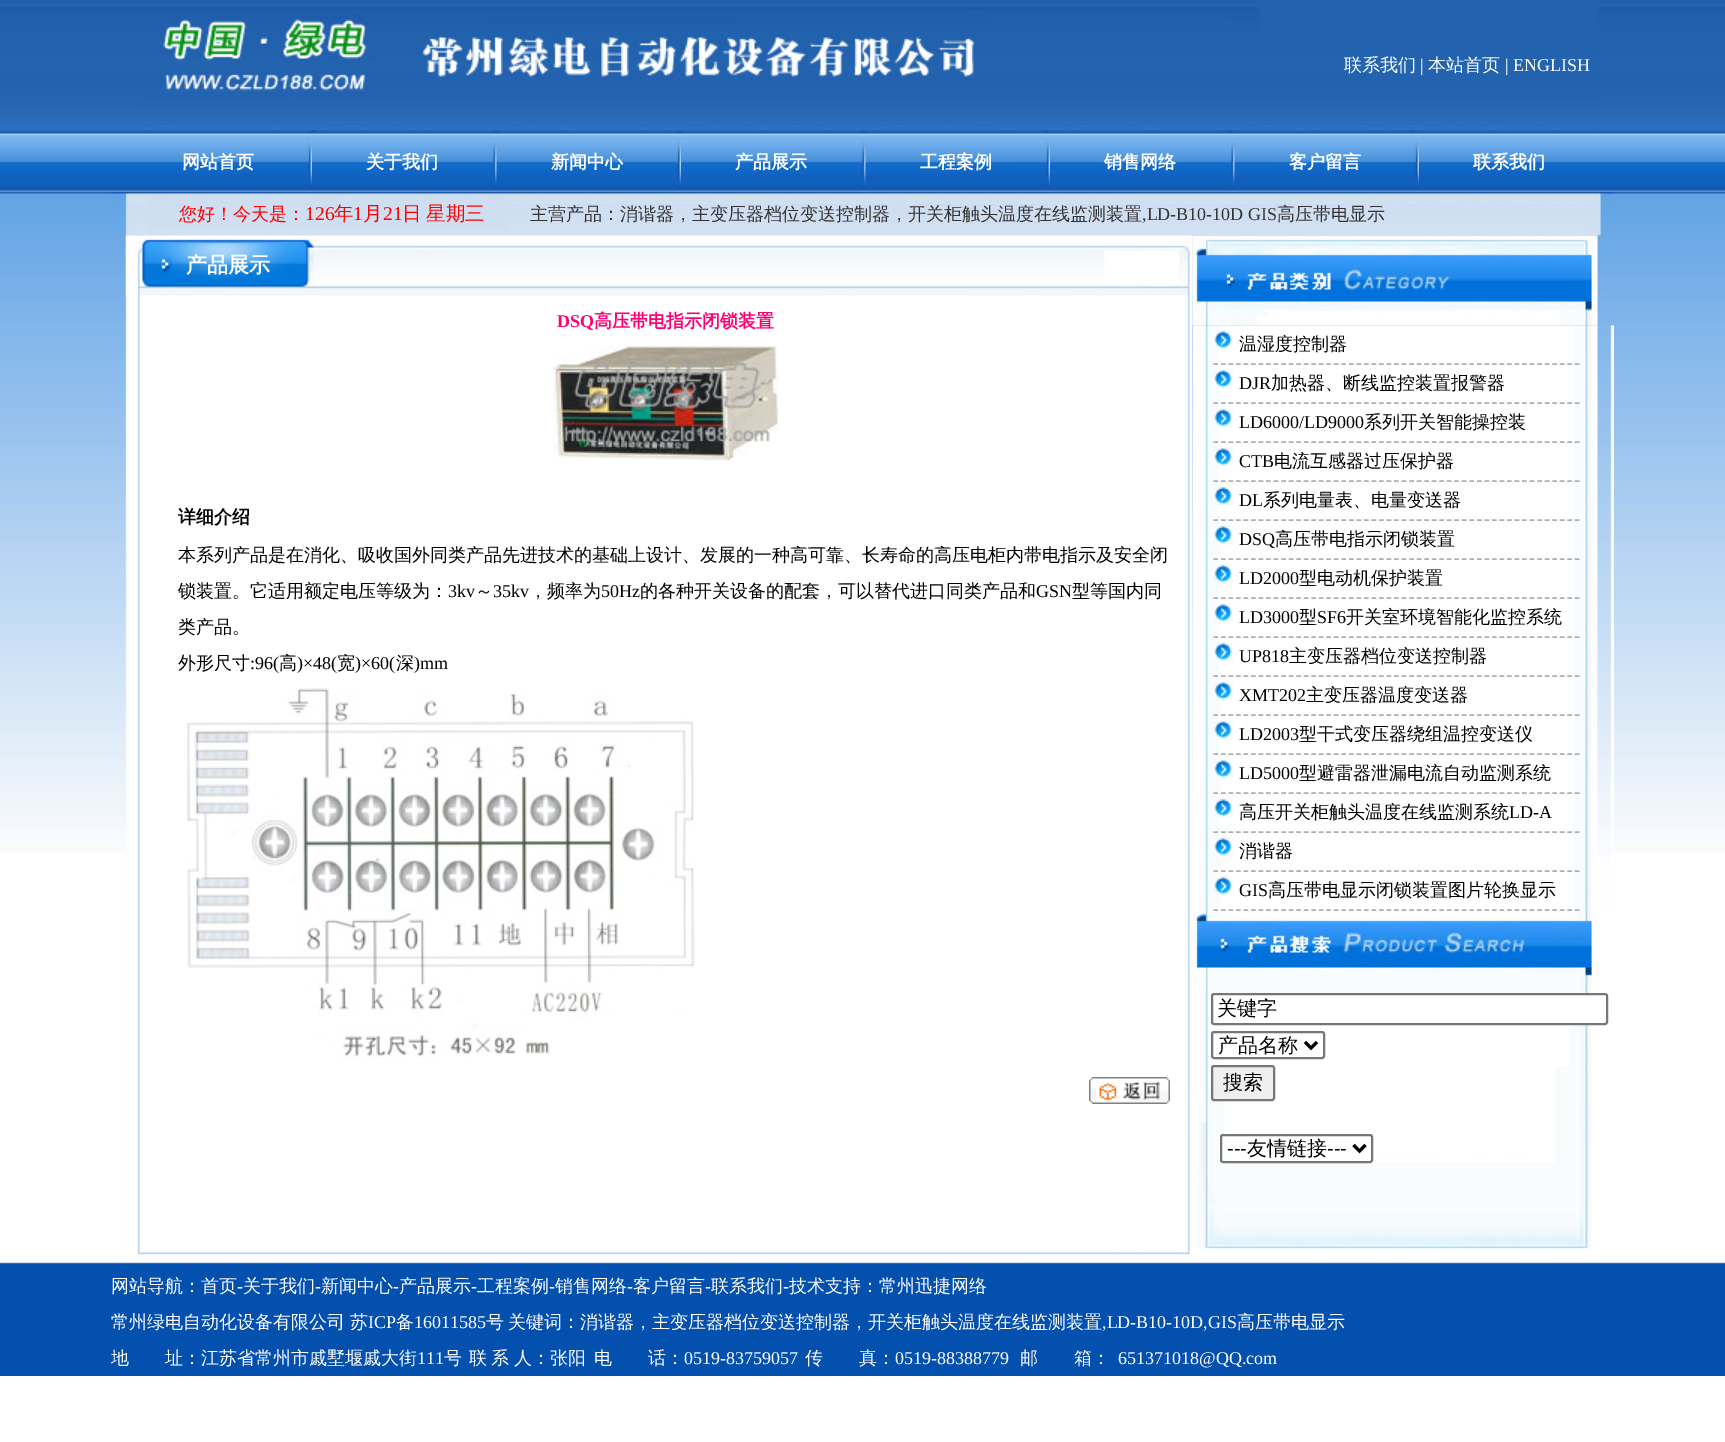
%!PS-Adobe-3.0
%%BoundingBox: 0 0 1725 1442
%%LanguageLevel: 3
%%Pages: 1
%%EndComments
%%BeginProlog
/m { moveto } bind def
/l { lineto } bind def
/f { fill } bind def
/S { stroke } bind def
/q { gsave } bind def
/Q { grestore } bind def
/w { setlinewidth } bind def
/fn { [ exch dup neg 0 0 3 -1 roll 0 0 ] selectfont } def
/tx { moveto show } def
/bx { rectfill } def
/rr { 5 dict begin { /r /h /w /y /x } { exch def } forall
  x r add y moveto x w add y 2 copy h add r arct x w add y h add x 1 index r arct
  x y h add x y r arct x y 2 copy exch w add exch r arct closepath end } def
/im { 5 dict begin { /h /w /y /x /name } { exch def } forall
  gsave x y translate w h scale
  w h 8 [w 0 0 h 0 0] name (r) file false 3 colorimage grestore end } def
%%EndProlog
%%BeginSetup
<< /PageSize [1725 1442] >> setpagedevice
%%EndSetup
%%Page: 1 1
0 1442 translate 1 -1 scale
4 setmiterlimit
1 setgray
0 0 1725 1442 bx
(image0.raw) 0 0 1725 852 im
(image1.raw) 143 7 1456 125 im
/WenQuanYiZenHei-Medium 18 fn
(联系我们) 1344 71 tx
/LiberationSerif-Regular 18 fn
(|) 1420 71 tx
/WenQuanYiZenHei-Medium 18 fn
(本站首页) 1428 71 tx
/LiberationSerif-Regular 18 fn
(| ENGLISH) 1505 71 tx
/WenQuanYiZenHei-Bold 18 fn
(网站首页) 182 168 tx
(image2.raw) 307 132 5 60 im
(关于我们) 366 168 tx
(image3.raw) 492 132 5 60 im
(新闻中心) 551 168 tx
(image4.raw) 676 132 5 60 im
(产品展示) 735 168 tx
(image5.raw) 861 132 5 60 im
(工程案例) 920 168 tx
(image6.raw) 1045 132 5 60 im
(销售网络) 1104 168 tx
(image7.raw) 1230 132 5 60 im
(客户留言) 1289 168 tx
(image8.raw) 1414 132 5 60 im
(联系我们) 1473 168 tx
(image9.raw) 111 192 1503 44 im
/WenQuanYiZenHei-Medium 18 fn
1 0 0 setrgbcolor
(您好！今天是：) 179 220 tx
/LiberationSerif-Regular 19.5 fn
(126) 305 220 tx
/WenQuanYiZenHei-Medium 19.5 fn
(年) 334 220 tx
/LiberationSerif-Regular 19.5 fn
(1) 353 220 tx
/WenQuanYiZenHei-Medium 19.5 fn
(月) 363 220 tx
/LiberationSerif-Regular 19.5 fn
(21) 383 220 tx
/WenQuanYiZenHei-Medium 19.5 fn
(日) 402 220 tx
(星期三) 426 220 tx
/WenQuanYiZenHei-Medium 18 fn
0.2 setgray
(主营产品：消谐器，主变压器档位变送控制器，开关柜触头温度在线监测装置) 530 220 tx
/LiberationSerif-Regular 18 fn
(,LD-B10-10D GIS) 1142 220 tx
/WenQuanYiZenHei-Medium 18 fn
(高压带电显示) 1277 220 tx
(image10.raw) 125 235 1068 1016 im
(image11.raw) 125 235 1068 61 im
/WenQuanYiZenHei-Bold 21 fn
1 setgray
(产品展示) 186 272 tx
/LiberationSerif-Bold 18 fn
1 0 0.447 setrgbcolor
(DSQ) 557 327 tx
/WenQuanYiZenHei-Bold 18 fn
(高压带电指示闭锁装置) 594 327 tx
(image12.raw) 553 346 226 115 im
0 setgray
(详细介绍) 178 523 tx
/WenQuanYiZenHei-Medium 18 fn
(本系列产品是在消化、吸收国外同类产品先进技术的基础上设计、发展的一种高可靠、长寿命的高压电柜内带电指示及安全闭) 178 561 tx
(锁装置。它适用额定电压等级为：) 178 597 tx
/LiberationSerif-Regular 18 fn
(3kv) 448 597 tx
/WenQuanYiZenHei-Medium 18 fn
(～) 475 597 tx
/LiberationSerif-Regular 18 fn
(35kv) 493 597 tx
/WenQuanYiZenHei-Medium 18 fn
(，频率为) 529 597 tx
/LiberationSerif-Regular 18 fn
(50Hz) 601 597 tx
/WenQuanYiZenHei-Medium 18 fn
(的各种开关设备的配套，可以替代进口同类产品和) 640 597 tx
/LiberationSerif-Regular 18 fn
(GSN) 1036 597 tx
/WenQuanYiZenHei-Medium 18 fn
(型等国内同) 1072 597 tx
(类产品。) 178 633 tx
(外形尺寸) 178 669 tx
/LiberationSerif-Regular 18 fn
(:96\() 250 669 tx
/WenQuanYiZenHei-Medium 18 fn
(高) 279 669 tx
/LiberationSerif-Regular 18 fn
(\)×48\() 297 669 tx
/WenQuanYiZenHei-Medium 18 fn
(宽) 337 669 tx
/LiberationSerif-Regular 18 fn
(\)×60\() 355 669 tx
/WenQuanYiZenHei-Medium 18 fn
(深) 396 669 tx
/LiberationSerif-Regular 18 fn
(\)mm) 414 669 tx
(image13.raw) 187 688 508 371 im
(image14.raw) 1089 1077 81 27 im
(image16.raw) 1193 325 421 587 im
(image15.raw) 1192 235 419 91 im
0.682 setgray
1.5 w
[4.5 3.03] 0 setdash
1213.5 364 m 1579.5 364 l S
(image17.raw) 1213 330 20 20 im
/WenQuanYiZenHei-Medium 18 fn
0 setgray
(温湿度控制器) 1239 350 tx
0.682 setgray
1213.5 403 m 1579.5 403 l S
(image18.raw) 1213 369 20 20 im
/LiberationSerif-Regular 18 fn
0 setgray
(DJR) 1239 389 tx
/WenQuanYiZenHei-Medium 18 fn
(加热器、断线监控装置报警器) 1271 389 tx
0.682 setgray
1213.5 442 m 1579.5 442 l S
(image19.raw) 1213 408 20 20 im
/LiberationSerif-Regular 18 fn
0 setgray
(LD6000/LD9000) 1239 428 tx
/WenQuanYiZenHei-Medium 18 fn
(系列开关智能操控装) 1364 428 tx
0.682 setgray
1213.5 481 m 1579.5 481 l S
(image20.raw) 1213 447 20 20 im
/LiberationSerif-Regular 18 fn
0 setgray
(CTB) 1239 467 tx
/WenQuanYiZenHei-Medium 18 fn
(电流互感器过压保护器) 1274 467 tx
0.682 setgray
1213.5 520 m 1579.5 520 l S
(image20.raw) 1213 486 20 20 im
/LiberationSerif-Regular 18 fn
0 setgray
(DL) 1239 506 tx
/WenQuanYiZenHei-Medium 18 fn
(系列电量表、电量变送器) 1263 506 tx
0.682 setgray
1213.5 559 m 1579.5 559 l S
(image21.raw) 1213 525 20 20 im
/LiberationSerif-Regular 18 fn
0 setgray
(DSQ) 1239 545 tx
/WenQuanYiZenHei-Medium 18 fn
(高压带电指示闭锁装置) 1275 545 tx
0.682 setgray
1213.5 598 m 1579.5 598 l S
(image20.raw) 1213 564 20 20 im
/LiberationSerif-Regular 18 fn
0 setgray
(LD2000) 1239 584 tx
/WenQuanYiZenHei-Medium 18 fn
(型电动机保护装置) 1299 584 tx
0.682 setgray
1213.5 637 m 1579.5 637 l S
(image22.raw) 1213 603 20 20 im
/LiberationSerif-Regular 18 fn
0 setgray
(LD3000) 1239 623 tx
/WenQuanYiZenHei-Medium 18 fn
(型) 1299 623 tx
/LiberationSerif-Regular 18 fn
(SF6) 1317 623 tx
/WenQuanYiZenHei-Medium 18 fn
(开关室环境智能化监控系统) 1346 623 tx
0.682 setgray
1213.5 676 m 1579.5 676 l S
(image23.raw) 1213 642 20 20 im
/LiberationSerif-Regular 18 fn
0 setgray
(UP818) 1239 662 tx
/WenQuanYiZenHei-Medium 18 fn
(主变压器档位变送控制器) 1289 662 tx
0.682 setgray
1213.5 715 m 1579.5 715 l S
(image20.raw) 1213 681 20 20 im
/LiberationSerif-Regular 18 fn
0 setgray
(XMT202) 1239 701 tx
/WenQuanYiZenHei-Medium 18 fn
(主变压器温度变送器) 1306 701 tx
0.682 setgray
1213.5 754 m 1579.5 754 l S
(image20.raw) 1213 720 20 20 im
/LiberationSerif-Regular 18 fn
0 setgray
(LD2003) 1239 740 tx
/WenQuanYiZenHei-Medium 18 fn
(型干式变压器绕组温控变送仪) 1299 740 tx
0.682 setgray
1213.5 793 m 1579.5 793 l S
(image24.raw) 1213 759 20 20 im
/LiberationSerif-Regular 18 fn
0 setgray
(LD5000) 1239 779 tx
/WenQuanYiZenHei-Medium 18 fn
(型避雷器泄漏电流自动监测系统) 1299 779 tx
0.682 setgray
1213.5 832 m 1579.5 832 l S
(image25.raw) 1213 798 20 20 im
0 setgray
(高压开关柜触头温度在线监测系统) 1239 818 tx
/LiberationSerif-Regular 18 fn
(LD-A) 1509 818 tx
0.682 setgray
1213.5 871 m 1579.5 871 l S
(image20.raw) 1213 837 20 20 im
/WenQuanYiZenHei-Medium 18 fn
0 setgray
(消谐器) 1239 857 tx
0.682 setgray
1213.5 910 m 1579.5 910 l S
(image26.raw) 1213 876 20 20 im
/LiberationSerif-Regular 18 fn
0 setgray
(GIS) 1239 896 tx
/WenQuanYiZenHei-Medium 18 fn
(高压带电显示闭锁装置图片轮换显示) 1268 896 tx
(image27.raw) 1193 912 406 75 im
(image28.raw) 1196 987 397 262 im
1 setgray
1212 994 395 30 2 rr q f Q
0.463 setgray
2 w
[] 0 setdash
S
/WenQuanYiZenHei-Medium 20 fn
0 setgray
(关键字) 1217 1015 tx
1 setgray
1212 1032 112 26 2 rr q f Q
0.463 setgray
S
0 setgray
3 w
1305 1042 m 1311 1048 l 1317 1042 l S
(产品名称) 1218 1052 tx
0.937 setgray
1212 1066 62 34 2 rr q f Q
0.463 setgray
2 w
S
0 setgray
(搜索) 1223 1089 tx
1 setgray
1221 1135 151 27 2 rr q f Q
0.463 setgray
S
0 setgray
3 w
1353.5 1145 m 1359.5 1151 l 1365.5 1145 l S
/LiberationSans-Regular 20 fn
(---) 1227 1155 tx
/WenQuanYiZenHei-Medium 20 fn
(友情链接) 1247 1155 tx
/LiberationSans-Regular 20 fn
(---) 1327 1155 tx
(image29.raw) 137 1251 1054 4 im
0.016 0.314 0.682 setrgbcolor
0 1264 1725 112 bx
(image30.raw) 0 1256 1725 8 im
/WenQuanYiZenHei-Medium 18 fn
1 setgray
(网站导航：首页) 111 1292 tx
/LiberationSerif-Regular 18 fn
(-) 237 1292 tx
/WenQuanYiZenHei-Medium 18 fn
(关于我们) 243 1292 tx
/LiberationSerif-Regular 18 fn
(-) 315 1292 tx
/WenQuanYiZenHei-Medium 18 fn
(新闻中心) 321 1292 tx
/LiberationSerif-Regular 18 fn
(-) 393 1292 tx
/WenQuanYiZenHei-Medium 18 fn
(产品展示) 399 1292 tx
/LiberationSerif-Regular 18 fn
(-) 471 1292 tx
/WenQuanYiZenHei-Medium 18 fn
(工程案例) 477 1292 tx
/LiberationSerif-Regular 18 fn
(-) 549 1292 tx
/WenQuanYiZenHei-Medium 18 fn
(销售网络) 555 1292 tx
/LiberationSerif-Regular 18 fn
(-) 627 1292 tx
/WenQuanYiZenHei-Medium 18 fn
(客户留言) 633 1292 tx
/LiberationSerif-Regular 18 fn
(-) 705 1292 tx
/WenQuanYiZenHei-Medium 18 fn
(联系我们) 711 1292 tx
/LiberationSerif-Regular 18 fn
(-) 783 1292 tx
/WenQuanYiZenHei-Medium 18 fn
(技术支持：常州迅捷网络) 789 1292 tx
(常州绿电自动化设备有限公司) 111 1328 tx
(苏) 350 1328 tx
/LiberationSerif-Regular 18 fn
(ICP) 368 1328 tx
/WenQuanYiZenHei-Medium 18 fn
(备) 396 1328 tx
/LiberationSerif-Regular 18 fn
(16011585) 414 1328 tx
/WenQuanYiZenHei-Medium 18 fn
(号) 486 1328 tx
(关键词：消谐器，主变压器档位变送控制器，开关柜触头温度在线监测装置) 508 1328 tx
/LiberationSerif-Regular 18 fn
(,LD-B10-10D,GIS) 1102 1328 tx
/WenQuanYiZenHei-Medium 18 fn
(高压带电显示) 1237 1328 tx
(地　　址：江苏省常州市戚墅堰戚大街) 111 1364 tx
/LiberationSerif-Regular 18 fn
(111) 417 1364 tx
/WenQuanYiZenHei-Medium 18 fn
(号) 444 1364 tx
469 1364 m -1 0 32 (联 系 人：张阳) widthshow
(电　　话：) 594 1364 tx
/LiberationSerif-Regular 18 fn
(0519-83759057) 684 1364 tx
/WenQuanYiZenHei-Medium 18 fn
(传　　真：) 805 1364 tx
/LiberationSerif-Regular 18 fn
(0519-88388779) 895 1364 tx
/WenQuanYiZenHei-Medium 18 fn
(邮　　箱：) 1020 1364 tx
/LiberationSerif-Regular 18 fn
(651371018@QQ.com) 1118 1364 tx
showpage
%%EOF
